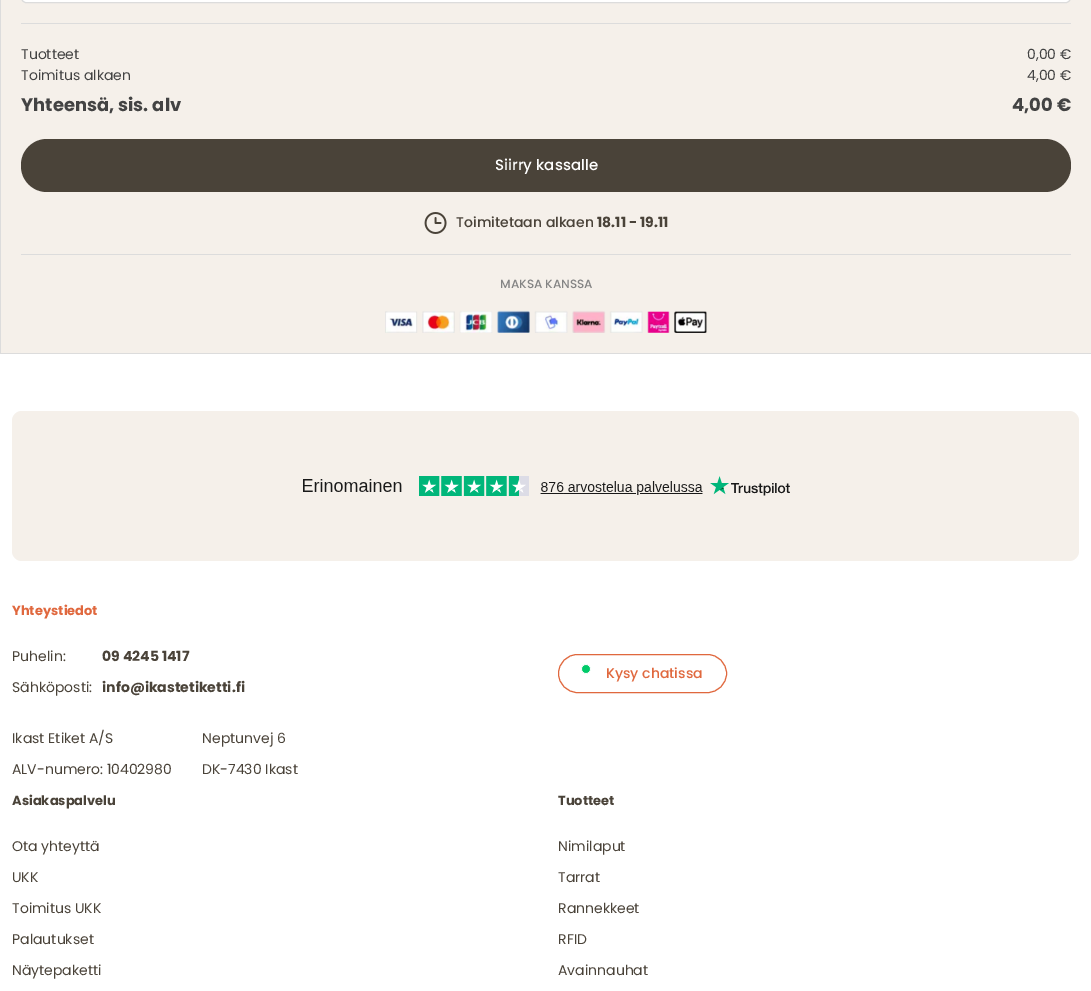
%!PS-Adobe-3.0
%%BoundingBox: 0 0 1091 991
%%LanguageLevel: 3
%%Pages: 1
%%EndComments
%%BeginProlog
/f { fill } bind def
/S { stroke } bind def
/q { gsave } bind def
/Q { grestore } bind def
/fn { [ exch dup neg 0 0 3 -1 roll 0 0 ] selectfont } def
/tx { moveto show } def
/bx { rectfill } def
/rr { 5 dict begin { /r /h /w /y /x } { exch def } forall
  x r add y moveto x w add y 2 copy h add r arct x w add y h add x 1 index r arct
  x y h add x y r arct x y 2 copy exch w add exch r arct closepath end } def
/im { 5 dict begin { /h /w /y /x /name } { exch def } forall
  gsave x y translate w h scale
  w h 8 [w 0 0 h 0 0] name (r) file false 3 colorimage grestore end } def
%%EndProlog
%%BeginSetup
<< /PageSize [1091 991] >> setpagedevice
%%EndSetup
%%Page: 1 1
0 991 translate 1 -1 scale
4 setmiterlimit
1 setgray
0 0 1091 991 bx
0.961 0.941 0.918 setrgbcolor
1 0 1090 353 bx
0.863 setgray
0 0 1 353 bx
1 setgray
21.5 -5.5 1049 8 4.5 rr q f Q
0.863 setgray
S
21 23 1050 1 bx
/Poppins-Regular 14 fn
0.263 setgray
(Tuotteet) 21 59 tx
(0,00 €) 1027 59 tx
(Toimitus alkaen) 21 80 tx
(4,00 €) 1027 80 tx
/Poppins-Bold 18 fn
(Yhteensä, sis. alv) 21 111 tx
(4,00 €) 1012 111 tx
0.29 0.263 0.224 setrgbcolor
21 139 1050 53 26 rr f
/Poppins-Medium 15 fn
1 setgray
(Siirry kassalle) 495 170 tx
(image0.raw) 424 212 23 22 im
/Poppins-Medium 14 fn
0.29 0.263 0.224 setrgbcolor
(Toimitetaan alkaen) 456 227 tx
/Poppins-Bold 14 fn
(18.11 - 19.11) 597 227 tx
0.863 setgray
21 254 1050 1 bx
/Poppins-Medium 12 fn
0.518 setgray
(MAKSA KANSSA) 500 288 tx
(image1.raw) 385 310 322 23 im
0.863 setgray
0 353 1091 1 bx
0.961 0.941 0.918 setrgbcolor
12 411 1067 150 10 rr f
(image2.raw) 303 476 487 20 im
/Poppins-Bold 13 fn
0.878 0.408 0.243 setrgbcolor
(Yhteystiedot) 12 615 tx
/Poppins-Regular 14 fn
0.29 0.263 0.224 setrgbcolor
(Puhelin:) 12 661 tx
(Sähköposti:) 12 692 tx
/Poppins-Bold 14 fn
(09 4245 1417) 102 661 tx
(info@ikastetiketti.fi) 102 692 tx
/Poppins-Regular 14 fn
(Ikast Etiket A/S) 12 743 tx
(ALV-numero: 10402980) 12 774 tx
(Neptunvej 6) 202 743 tx
(DK-7430 Ikast) 202 774 tx
0.878 0.408 0.243 setrgbcolor
558.5 654.5 168 38 19 rr S
(image3.raw) 581 664 10 10 im
/Poppins-Medium 14 fn
(Kysy chatissa) 606 678 tx
/Poppins-Bold 13 fn
0.29 0.263 0.224 setrgbcolor
(Asiakaspalvelu) 12 805 tx
/Poppins-Regular 14 fn
(Ota yhteyttä) 12 851 tx
(UKK) 12 882 tx
(Toimitus UKK) 12 913 tx
(Palautukset) 12 944 tx
(Näytepaketti) 12 975 tx
/Poppins-Bold 13 fn
(Tuotteet) 558 805 tx
/Poppins-Regular 14 fn
(Nimilaput) 558 851 tx
(Tarrat) 558 882 tx
(Rannekkeet) 558 913 tx
(RFID) 558 944 tx
(Avainnauhat) 558 975 tx
showpage
%%EOF
